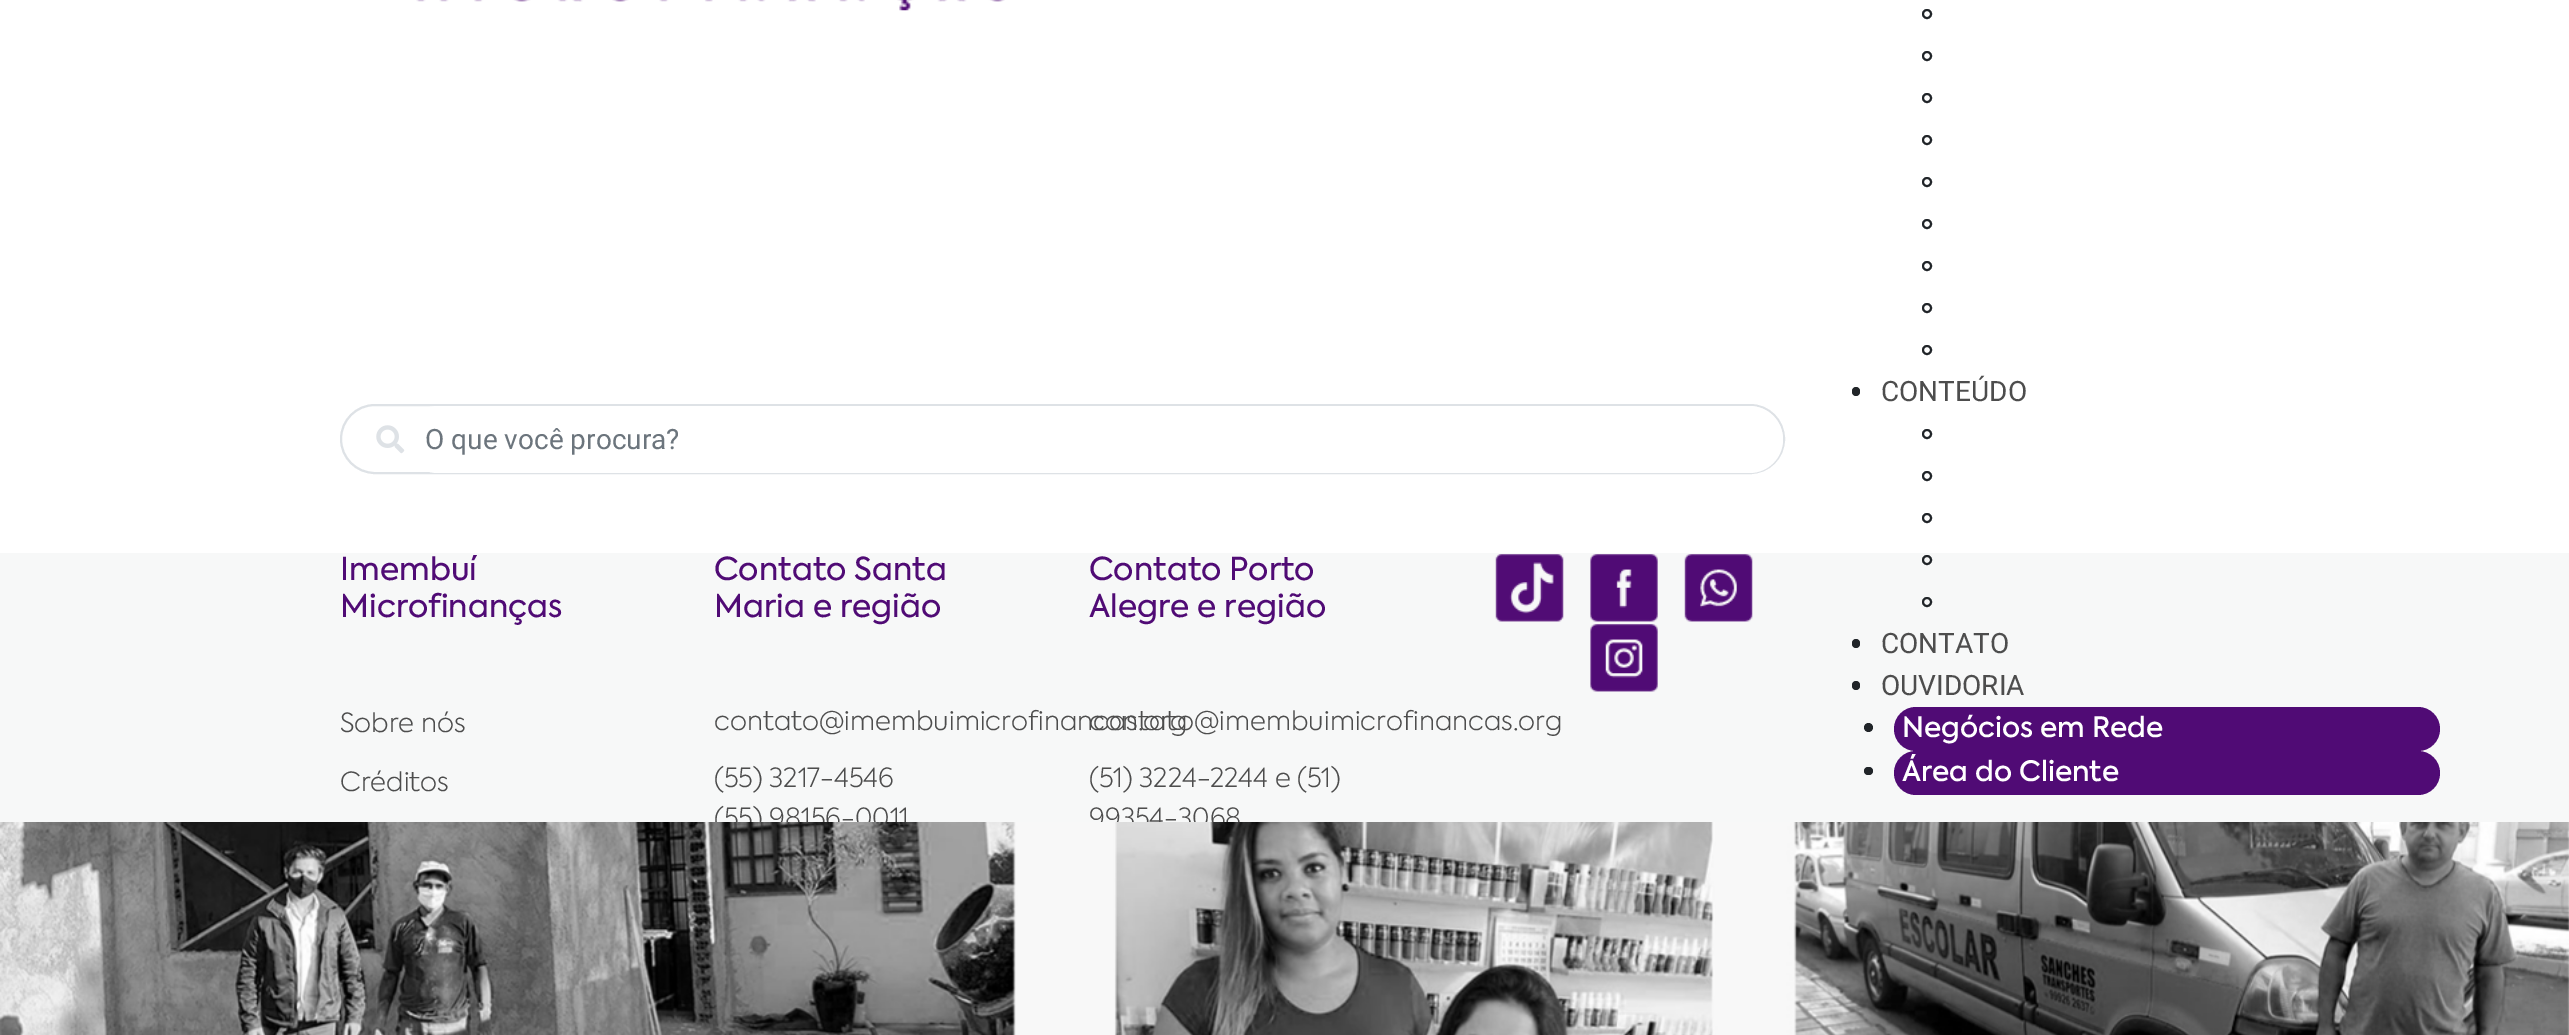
%!PS-Adobe-3.0
%%BoundingBox: 0 0 2569 1035
%%LanguageLevel: 3
%%Pages: 1
%%EndComments
%%BeginProlog
/f { fill } bind def
/S { stroke } bind def
/w { setlinewidth } bind def
/fn { [ exch dup neg 0 0 3 -1 roll 0 0 ] selectfont } def
/tx { moveto show } def
/bx { rectfill } def
/ci { newpath 0 360 arc closepath } def
/rr { 5 dict begin { /r /h /w /y /x } { exch def } forall
  x r add y moveto x w add y 2 copy h add r arct x w add y h add x 1 index r arct
  x y h add x y r arct x y 2 copy exch w add exch r arct closepath end } def
/im { 5 dict begin { /h /w /y /x /name } { exch def } forall
  gsave x y translate w h scale
  w h 8 [w 0 0 h 0 0] name (r) file false 3 colorimage grestore end } def
%%EndProlog
%%BeginSetup
<< /PageSize [2569 1035] >> setpagedevice
%%EndSetup
%%Page: 1 1
0 1035 translate 1 -1 scale
4 setmiterlimit
1 setgray
0 0 2569 1035 bx
0.871 0.886 0.902 setrgbcolor
2 w
341 405 1443 68 34 rr S
(image0.raw) 376 425 29 29 im
1 setgray
404 406 1379 67 33.5 rr f
/Roboto-Regular 28 fn
0.424 0.459 0.49 setrgbcolor
(O que você procura?) 425 449 tx
0.969 0.973 0.973 setrgbcolor
0 553 2569 482 bx
/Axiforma-Light 26.25 fn
0.302 setgray
(\(55\) 98156-0011) 714 827 tx
(99354-3068) 1089 827 tx
(image1.raw) 0 822 2569 213 im
(image2.raw) 416 0 589 11 im
0.129 0.145 0.161 setrgbcolor
1927 14 4 ci S
1927 56 4 ci S
1927 98 4 ci S
1927 140 4 ci S
1927 182 4 ci S
1927 224 4 ci S
1927 266 4 ci S
1927 308 4 ci S
1927 350 4 ci S
1852 387 8 9 4 rr f
/Roboto-Regular 28 fn
0.302 setgray
(CONTEÚDO) 1881 401 tx
0.129 0.145 0.161 setrgbcolor
1927 434 4 ci S
1927 476 4 ci S
1927 518 4 ci S
1927 560 4 ci S
1927 602 4 ci S
1852 639 8 9 4 rr f
0.302 setgray
(CONTATO) 1881 653 tx
0.129 0.145 0.161 setrgbcolor
1852 681 8 9 4 rr f
0.302 setgray
(OUVIDORIA) 1881 695 tx
0.314 0.043 0.459 setrgbcolor
1894 707 546 44 22 rr f
0.129 0.145 0.161 setrgbcolor
1868.5 727.5 4.5 ci f
/Axiforma-Medium 28 fn
1 setgray
(Negócios em Rede) 1902 737 tx
0.314 0.043 0.459 setrgbcolor
1894 751 546 44 22 rr f
0.129 0.145 0.161 setrgbcolor
1864 767 9 8 4 rr f
1 setgray
(Área do Cliente) 1902 781 tx
/Axiforma-Regular 31.5 fn
0.314 0.043 0.459 setrgbcolor
(Imembuí) 340 580 tx
(Microfinanças) 340 617 tx
/Axiforma-Light 26.25 fn
0.302 setgray
(Sobre nós) 340 732 tx
(Créditos) 340 791 tx
/Axiforma-Regular 31.5 fn
0.314 0.043 0.459 setrgbcolor
(Contato Santa) 714 580 tx
(Maria e região) 714 617 tx
/Axiforma-Light 26.25 fn
0.302 setgray
(contato@imembuimicrofinancas.org) 714 730 tx
(\(55\) 3217-4546) 714 787 tx
/Axiforma-Regular 31.5 fn
0.314 0.043 0.459 setrgbcolor
(Contato Porto) 1089 580 tx
(Alegre e região) 1089 617 tx
/Axiforma-Light 26.25 fn
0.302 setgray
(contato@imembuimicrofinancas.org) 1089 730 tx
(\(51\) 3224-2244 e \(51\)) 1089 787 tx
(image3.raw) 1495 554 69 68 im
(image4.raw) 1590 554 68 68 im
(image5.raw) 1684 554 69 68 im
(image6.raw) 1590 624 68 68 im
showpage
%%EOF
